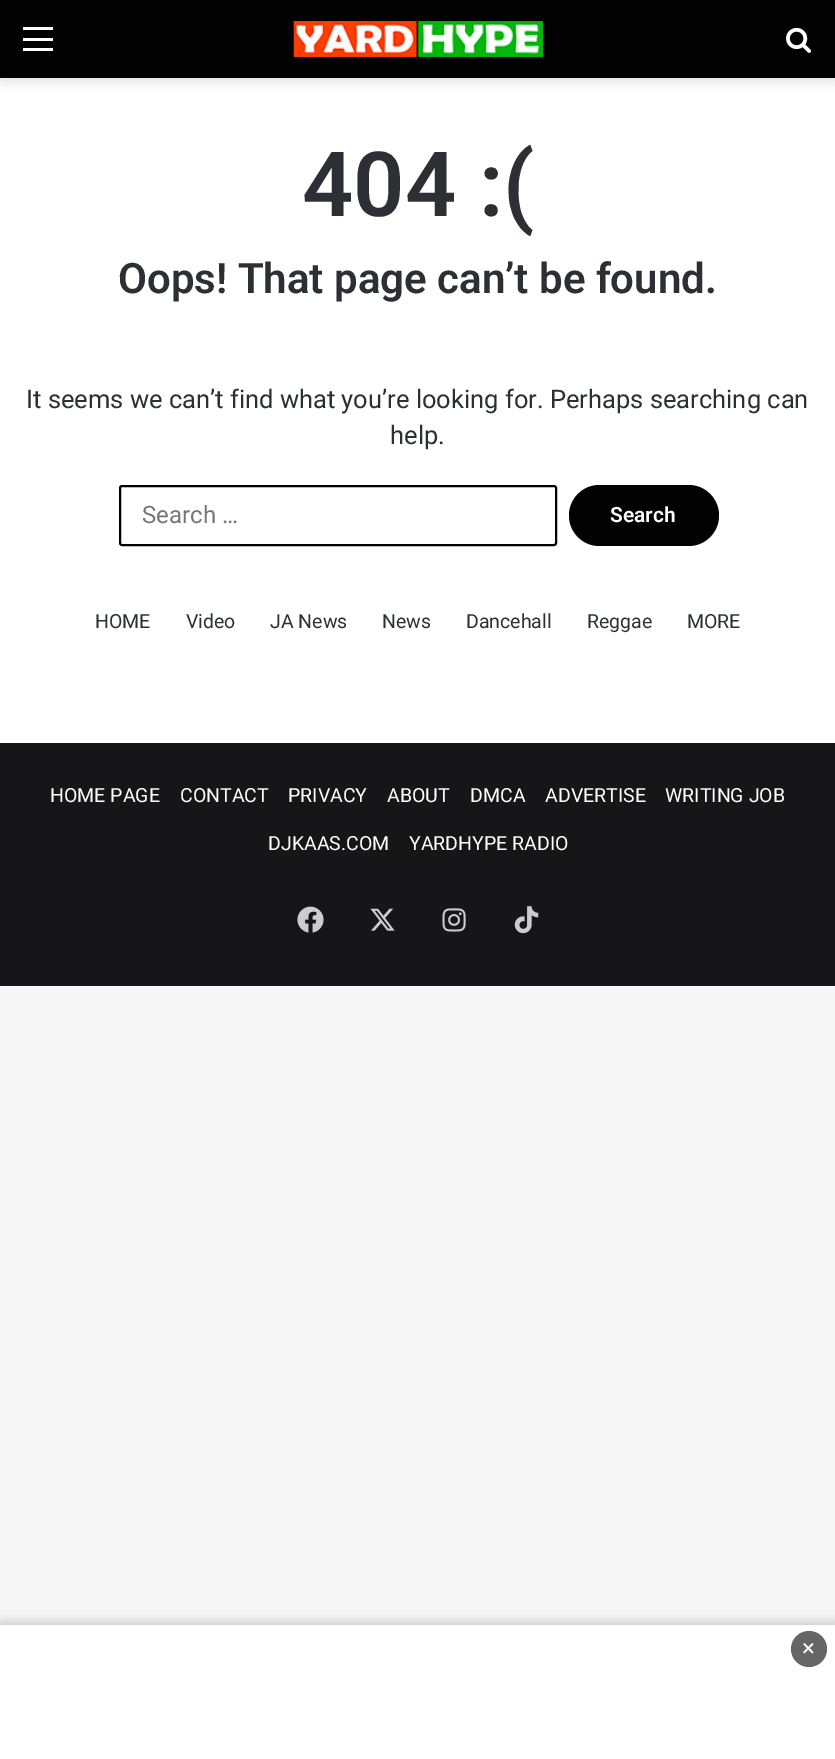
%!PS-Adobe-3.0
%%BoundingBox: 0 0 835 1759
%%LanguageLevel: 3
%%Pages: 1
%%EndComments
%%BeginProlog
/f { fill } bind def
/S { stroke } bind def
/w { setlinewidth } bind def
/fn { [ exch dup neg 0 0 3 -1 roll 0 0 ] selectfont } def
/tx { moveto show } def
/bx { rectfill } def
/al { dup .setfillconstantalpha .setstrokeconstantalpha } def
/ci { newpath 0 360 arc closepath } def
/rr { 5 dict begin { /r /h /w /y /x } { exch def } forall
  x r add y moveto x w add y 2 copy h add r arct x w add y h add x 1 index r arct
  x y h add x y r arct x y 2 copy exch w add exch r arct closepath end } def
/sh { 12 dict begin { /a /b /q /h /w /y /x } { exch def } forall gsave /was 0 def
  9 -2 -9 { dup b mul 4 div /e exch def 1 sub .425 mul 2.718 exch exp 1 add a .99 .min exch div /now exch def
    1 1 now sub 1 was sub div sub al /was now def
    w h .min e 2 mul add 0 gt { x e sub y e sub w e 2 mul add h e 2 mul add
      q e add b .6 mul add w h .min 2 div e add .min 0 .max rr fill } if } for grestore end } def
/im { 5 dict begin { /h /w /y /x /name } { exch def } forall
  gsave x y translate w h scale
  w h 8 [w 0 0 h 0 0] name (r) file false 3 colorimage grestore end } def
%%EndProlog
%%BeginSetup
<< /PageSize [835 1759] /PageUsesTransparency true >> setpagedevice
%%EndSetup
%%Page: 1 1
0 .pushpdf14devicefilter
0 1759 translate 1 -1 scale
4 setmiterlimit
0.969 setgray
0 0 835 1759 bx
1 setgray
0 78 835 665 bx
0 setgray
0 5 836 78 0 5 0.1 sh
0.008 setgray
0 0 835 78 bx
1 setgray
23 38 30 3 bx
23 27 30 3 bx
23 48 30 3 bx
(image0.raw) 293 21 250 36 im
(image1.raw) 786 27 25 26 im
/Roboto-SemiBold 90 fn
0.173 0.184 0.204 setrgbcolor
(404 :\() 302 216 tx
/Roboto-SemiBold 42 fn
(Oops! That page can’t be found.) 118 293 tx
/Roboto-Regular 25.5 fn
(It seems we can’t find what you’re looking for. Perhaps searching can) 26 408 tx
(help.) 390 444 tx
0.008 setgray
2 w
120 486 436 59 2 rr S
/Roboto-Regular 24 fn
0.459 setgray
(Search …) 142 523 tx
0.008 setgray
569 485 150 61 30.5 rr f
/Roboto-SemiBold 21 fn
1 setgray
(Search) 610 522 tx
/Roboto-Regular 19.5 fn
0.173 0.184 0.204 setrgbcolor
(HOME) 95 628 tx
(Video) 186 628 tx
(JA News) 270 628 tx
(News) 382 628 tx
(Dancehall) 466 628 tx
(Reggae) 587 628 tx
(MORE) 687 628 tx
0.086 0.086 0.098 setrgbcolor
0 743 835 243 bx
1 setgray
(HOME PAGE) 50 802 tx
(CONTACT) 180 802 tx
(PRIVACY) 288 802 tx
(ABOUT) 387 802 tx
(DMCA) 470 802 tx
(ADVERTISE) 545 802 tx
(WRITING JOB) 665 802 tx
(DJKAAS.COM) 268 850 tx
(YARDHYPE RADIO) 409 850 tx
(image2.raw) 297 906 27 27 im
(image3.raw) 370 908 25 23 im
(image4.raw) 442 908 24 24 im
(image5.raw) 514 906 25 28 im
0 setgray
0 1622 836 135 0 6 0.2 sh
1 setgray
0 1625 835 134 bx
0.4 setgray
809 1649 18 ci f
/Roboto-Regular 24 fn
1 setgray
(×) 802 1656 tx
.poppdf14devicefilter showpage
%%EOF
